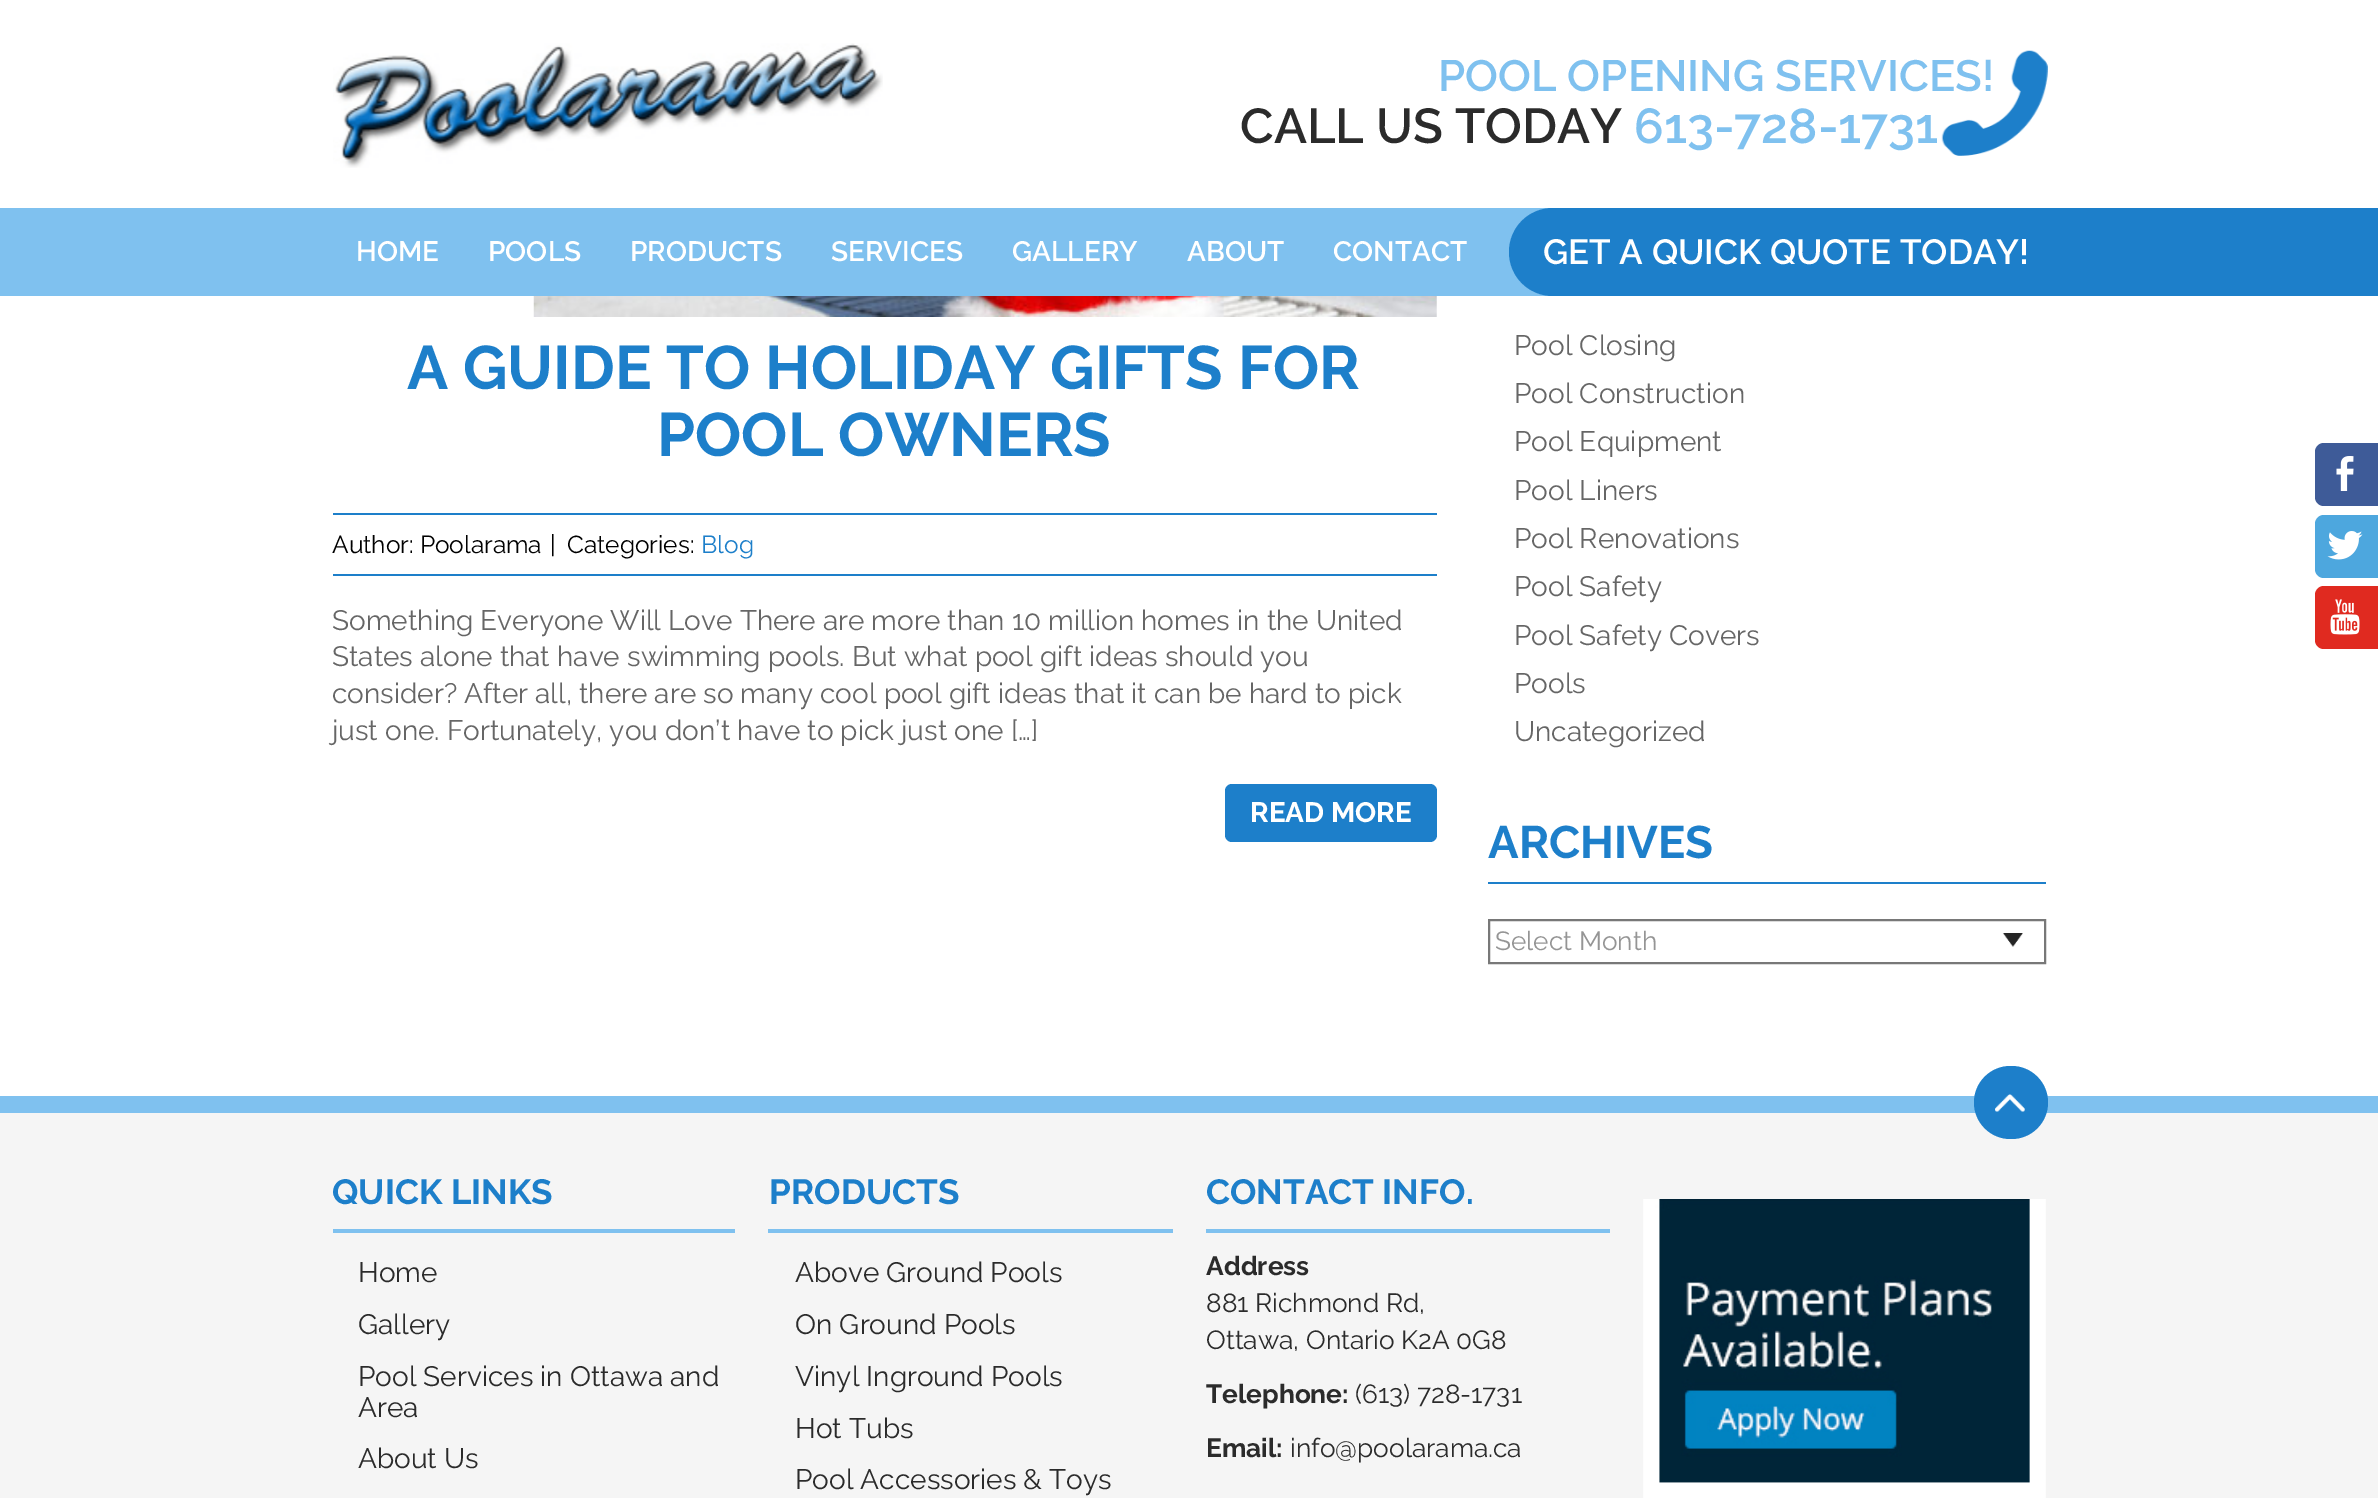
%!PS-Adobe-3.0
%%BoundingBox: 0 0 2378 1498
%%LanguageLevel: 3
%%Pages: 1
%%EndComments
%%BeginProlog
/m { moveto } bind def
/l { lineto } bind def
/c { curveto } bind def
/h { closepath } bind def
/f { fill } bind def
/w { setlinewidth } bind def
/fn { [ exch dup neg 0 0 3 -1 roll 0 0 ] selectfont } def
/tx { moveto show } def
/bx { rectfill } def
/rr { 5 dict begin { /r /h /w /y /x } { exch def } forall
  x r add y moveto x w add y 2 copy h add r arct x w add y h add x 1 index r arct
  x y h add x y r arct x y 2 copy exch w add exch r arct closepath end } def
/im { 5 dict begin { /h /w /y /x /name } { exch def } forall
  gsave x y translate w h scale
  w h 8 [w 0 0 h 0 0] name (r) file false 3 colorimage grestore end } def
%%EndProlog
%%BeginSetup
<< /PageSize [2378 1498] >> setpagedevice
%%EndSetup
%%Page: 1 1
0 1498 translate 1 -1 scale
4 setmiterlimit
1 setgray
0 0 2378 1498 bx
(image0.raw) 333 43 550 125 im
(image1.raw) 1941 50 107 106 im
/Raleway-SemiBold 43.75 fn
0.498 0.757 0.937 setrgbcolor
(POOL OPENING SERVICES!) 1438 91 tx
/Raleway-SemiBold 49 fn
0.169 setgray
(CALL US TODAY) 1240 143 tx
0.498 0.757 0.937 setrgbcolor
(613-728-1731) 1634 143 tx
0 208 1553 88 bx
/Raleway-SemiBold 28 fn
1 setgray
(HOME) 356 261 tx
(POOLS) 488 261 tx
(PRODUCTS) 630 261 tx
(SERVICES) 831 261 tx
(GALLERY) 1012 261 tx
(ABOUT) 1187 261 tx
(CONTACT) 1333 261 tx
0.114 0.498 0.792 setrgbcolor
1553 208 m 2048 208 l 2048 296 l 1553 296 l 1528.5 296 1509 276.5 1509 252 c 1509 227.5 1528.5 208 1553 208 c h f
/Raleway-SemiBold 35 fn
1 setgray
(GET A QUICK QUOTE TODAY!) 1543 264 tx
0.114 0.498 0.792 setrgbcolor
2048 208 330 88 bx
(image2.raw) 533 296 904 21 im
/Raleway-Bold 61.25 fn
(A GUIDE TO HOLIDAY GIFTS FOR) 407 389 tx
(POOL OWNERS) 657 456 tx
333 513 1104 2 bx
333 574 1104 2 bx
/Raleway-Regular 24.5 fn
0 setgray
(Author: Poolarama) 332 553 tx
(|) 550 553 tx
(Categories:) 567 553 tx
0.114 0.498 0.792 setrgbcolor
(Blog) 701 553 tx
/Raleway-Regular 28 fn
0.4 setgray
(Something Everyone Will Love There are more than 10 million homes in the United) 332 630 tx
(States alone that have swimming pools. But what pool gift ideas should you) 332 666 tx
(consider? After all, there are so many cool pool gift ideas that it can be hard to pick) 332 703 tx
(just one. Fortunately, you don’t have to pick just one […]) 332 740 tx
0.114 0.498 0.792 setrgbcolor
1225 784 212 58 7 rr f
/Raleway-Bold 28 fn
1 setgray
(READ MORE) 1250 822 tx
/Raleway-Regular 28 fn
0.4 setgray
(Pool Closing) 1514 355 tx
(Pool Construction) 1514 403 tx
(Pool Equipment) 1514 451 tx
(Pool Liners) 1514 500 tx
(Pool Renovations) 1514 548 tx
(Pool Safety) 1514 596 tx
(Pool Safety Covers) 1514 645 tx
(Pools) 1514 693 tx
(Uncategorized) 1514 741 tx
0.114 0.498 0.792 setrgbcolor
1488 882 558 2 bx
/Raleway-Bold 45.5 fn
(ARCHIVES) 1488 858 tx
(image3.raw) 2002 933 21 14 im
0.471 setgray
2 w
1489 920 556 43 rectstroke
/Raleway-Regular 26.25 fn
0.584 setgray
(Select Month) 1495 950 tx
0.961 setgray
0 1113 2378 385 bx
0.498 0.757 0.937 setrgbcolor
0 1096 2378 17 bx
0.114 0.498 0.792 setrgbcolor
1974 1066 74 73 36.5 rr f
(image4.raw) 1995 1094 30 18 im
0.498 0.757 0.937 setrgbcolor
333 1229 402 4 bx
/Raleway-Bold 35 fn
0.114 0.498 0.792 setrgbcolor
(QUICK LINKS) 332 1204 tx
/Raleway-Regular 28 fn
0.169 setgray
(Home) 358 1282 tx
(Gallery) 358 1334 tx
(Pool Services in Ottawa and) 358 1386 tx
(Area) 358 1417 tx
(About Us) 358 1468 tx
0.498 0.757 0.937 setrgbcolor
768 1229 405 4 bx
/Raleway-Bold 35 fn
0.114 0.498 0.792 setrgbcolor
(PRODUCTS) 769 1204 tx
/Raleway-Regular 28 fn
0.169 setgray
(Above Ground Pools) 795 1282 tx
(On Ground Pools) 795 1334 tx
(Vinyl Inground Pools) 795 1386 tx
(Hot Tubs) 795 1438 tx
(Pool Accessories & Toys) 795 1489 tx
0.498 0.757 0.937 setrgbcolor
1206 1229 404 4 bx
/Raleway-Bold 35 fn
0.114 0.498 0.792 setrgbcolor
(CONTACT INFO.) 1206 1204 tx
/Raleway-Bold 26.25 fn
0.169 setgray
(Address) 1206 1275 tx
/Raleway-Regular 26.25 fn
(881 Richmond Rd,) 1206 1312 tx
(Ottawa, Ontario K2A 0G8) 1206 1349 tx
/Raleway-Bold 26.25 fn
(Telephone:) 1206 1403 tx
/Raleway-Regular 26.25 fn
(\(613\) 728-1731) 1355 1403 tx
/Raleway-Bold 26.25 fn
(Email:) 1206 1457 tx
/Raleway-Regular 26.25 fn
(info@poolarama.ca) 1290 1457 tx
(image5.raw) 1643 1199 403 299 im
0.243 0.357 0.596 setrgbcolor
2315 443 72 63 9 rr f
(image6.raw) 2336 456 18 35 im
0.302 0.655 0.871 setrgbcolor
2315 515 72 63 9 rr f
(image7.raw) 2327 531 36 29 im
0.878 0.165 0.125 setrgbcolor
2315 586 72 63 9 rr f
(image8.raw) 2330 599 30 36 im
showpage
%%EOF
